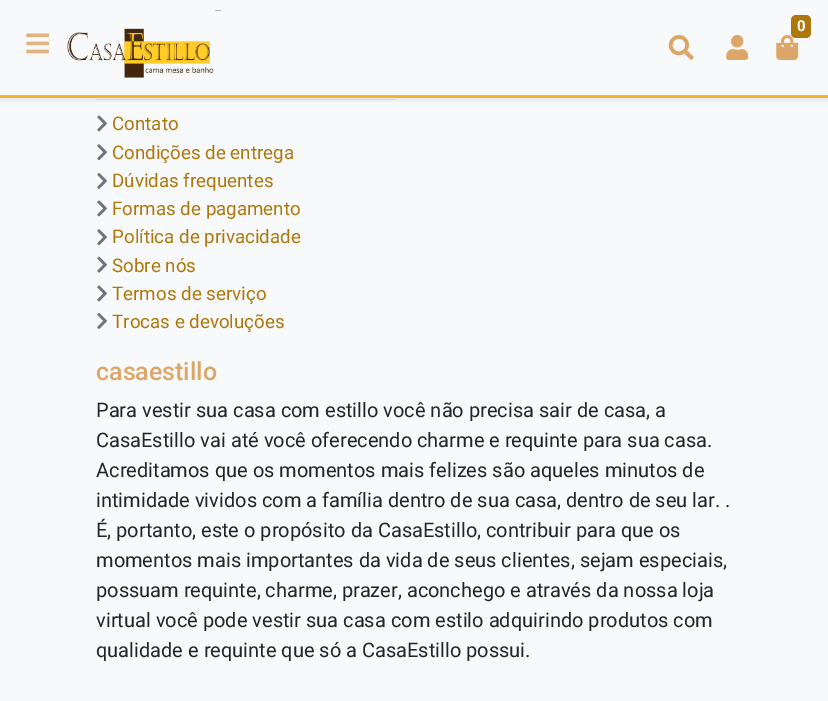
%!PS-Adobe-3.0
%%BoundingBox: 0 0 828 701
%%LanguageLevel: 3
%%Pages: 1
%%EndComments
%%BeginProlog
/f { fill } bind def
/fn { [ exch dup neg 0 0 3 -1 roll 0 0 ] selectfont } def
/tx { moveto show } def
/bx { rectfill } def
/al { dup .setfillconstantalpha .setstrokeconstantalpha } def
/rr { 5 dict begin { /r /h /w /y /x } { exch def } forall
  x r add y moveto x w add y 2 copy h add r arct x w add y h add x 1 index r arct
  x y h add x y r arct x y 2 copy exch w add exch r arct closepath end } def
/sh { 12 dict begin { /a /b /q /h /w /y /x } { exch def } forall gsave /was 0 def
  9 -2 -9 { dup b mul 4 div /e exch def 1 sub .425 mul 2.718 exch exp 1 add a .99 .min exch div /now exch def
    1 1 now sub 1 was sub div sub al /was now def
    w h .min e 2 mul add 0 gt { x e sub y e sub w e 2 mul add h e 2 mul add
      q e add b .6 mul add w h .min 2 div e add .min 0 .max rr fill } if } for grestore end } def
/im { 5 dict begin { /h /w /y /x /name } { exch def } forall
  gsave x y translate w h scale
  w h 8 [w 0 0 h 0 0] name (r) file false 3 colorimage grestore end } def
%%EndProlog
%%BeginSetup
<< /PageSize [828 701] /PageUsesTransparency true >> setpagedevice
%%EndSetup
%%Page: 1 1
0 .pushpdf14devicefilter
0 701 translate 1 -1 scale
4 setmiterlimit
0.973 0.976 0.98 setrgbcolor
0 0 828 701 bx
0.871 0.886 0.902 setrgbcolor
96 99 300 1 bx
0 setgray
0 3 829 97 0 2.5 0.07 sh
0.973 0.976 0.98 setrgbcolor
0 0 828 95 bx
0.945 0.694 0.2 setrgbcolor
0 95 828 3 bx
(image0.raw) 67 10 155 68 im
(image1.raw) 776 35 23 25 im
0.678 0.467 0.047 setrgbcolor
791 15 20 23 5 rr f
/Roboto-Bold 15 fn
1 setgray
(0) 797 31 tx
(image2.raw) 668 35 26 25 im
(image3.raw) 726 35 23 25 im
(image4.raw) 26 33 23 21 im
(image5.raw) 97 115 10 17 im
/Roboto-Regular 18.75 fn
0.678 0.467 0.047 setrgbcolor
(Contato) 112 130 tx
(image6.raw) 97 144 10 17 im
(Condições de entrega) 112 159 tx
(image7.raw) 97 173 10 16 im
(Dúvidas frequentes) 112 187 tx
(image5.raw) 97 200 10 17 im
(Formas de pagamento) 112 215 tx
(image6.raw) 97 229 10 17 im
(Política de privacidade) 112 243 tx
(image8.raw) 97 256 10 17 im
(Sobre nós) 112 272 tx
(image5.raw) 97 285 10 17 im
(Termos de serviço) 112 300 tx
(image7.raw) 97 313 10 16 im
(Trocas e devoluções) 112 328 tx
/Roboto-Medium 25 fn
0.867 0.651 0.412 setrgbcolor
(casaestillo) 96 380 tx
/Roboto-Regular 20 fn
0.129 0.145 0.161 setrgbcolor
(Para vestir sua casa com estillo você não precisa sair de casa, a) 96 417 tx
(CasaEstillo vai até você oferecendo charme e requinte para sua casa.) 96 447 tx
(Acreditamos que os momentos mais felizes são aqueles minutos de) 96 477 tx
(intimidade vividos com a família dentro de sua casa, dentro de seu lar. .) 96 507 tx
(É, portanto, este o propósito da CasaEstillo, contribuir para que os) 96 537 tx
(momentos mais importantes da vida de seus clientes, sejam especiais,) 96 567 tx
(possuam requinte, charme, prazer, aconchego e através da nossa loja) 96 597 tx
(virtual você pode vestir sua casa com estilo adquirindo produtos com) 96 627 tx
(qualidade e requinte que só a CasaEstillo possui.) 96 657 tx
.poppdf14devicefilter showpage
%%EOF
